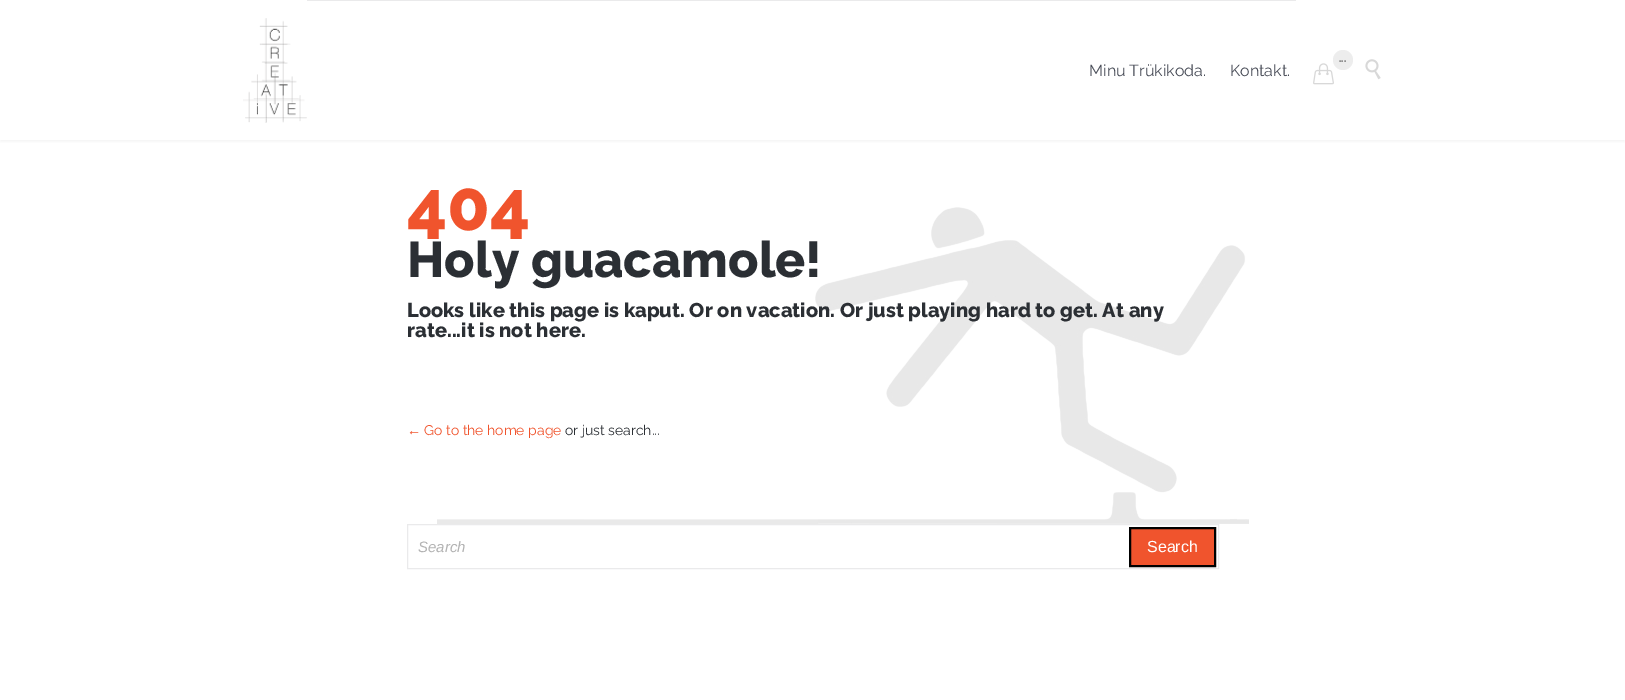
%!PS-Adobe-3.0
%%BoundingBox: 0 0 1625 700
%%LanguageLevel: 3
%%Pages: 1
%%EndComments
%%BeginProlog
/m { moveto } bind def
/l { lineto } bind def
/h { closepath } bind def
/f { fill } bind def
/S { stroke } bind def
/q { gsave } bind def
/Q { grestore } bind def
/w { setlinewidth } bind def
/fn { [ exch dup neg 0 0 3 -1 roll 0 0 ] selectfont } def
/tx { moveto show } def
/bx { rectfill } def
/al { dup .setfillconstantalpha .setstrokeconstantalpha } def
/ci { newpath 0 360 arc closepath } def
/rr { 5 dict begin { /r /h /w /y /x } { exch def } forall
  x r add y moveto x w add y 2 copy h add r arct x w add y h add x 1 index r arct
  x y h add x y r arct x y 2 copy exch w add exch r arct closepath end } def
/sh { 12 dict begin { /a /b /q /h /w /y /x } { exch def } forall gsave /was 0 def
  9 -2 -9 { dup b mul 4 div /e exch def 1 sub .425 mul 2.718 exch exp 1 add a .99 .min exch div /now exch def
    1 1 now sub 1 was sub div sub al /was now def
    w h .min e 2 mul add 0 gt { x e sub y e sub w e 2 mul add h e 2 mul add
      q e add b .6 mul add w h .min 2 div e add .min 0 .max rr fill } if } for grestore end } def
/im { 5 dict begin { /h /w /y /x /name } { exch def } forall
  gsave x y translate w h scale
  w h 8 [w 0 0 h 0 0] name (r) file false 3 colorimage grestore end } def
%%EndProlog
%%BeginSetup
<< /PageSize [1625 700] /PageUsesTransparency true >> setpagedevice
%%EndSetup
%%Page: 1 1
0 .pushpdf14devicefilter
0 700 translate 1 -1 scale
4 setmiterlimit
1 setgray
0 0 1625 700 bx
0 setgray
0 2 1625 140 0 1 0.04 sh
1 setgray
0 1 1625 139 bx
(image0.raw) 243 18 64 105 im
(image1.raw) 1313 63 21 22 im
0.929 setgray
1343 60 10 ci f
/Raleway-ExtraBold 10 fn
0.431 setgray
(...) 1339 62 tx
(image2.raw) 1365 59 16 21 im
0.918 0.918 0.922 setrgbcolor
307 0 989 1 bx
/Raleway-Regular 16 fn
0.278 0.294 0.337 setrgbcolor
(Minu Trükikoda.) 1089 76 tx
(Kontakt.) 1230 76 tx
(image3.raw) 437 207 812 317 im
/Raleway-ExtraBold 70 fn
0.941 0.329 0.176 setrgbcolor
(404) 407 230 tx
/Raleway-ExtraBold 50 fn
0.169 0.184 0.204 setrgbcolor
(Holy guacamole!) 407 277 tx
/Raleway-ExtraBold 20 fn
(Looks like this page is kaput. Or on vacation. Or just playing hard to get. At any) 407 317 tx
(rate...it is not here.) 407 337 tx
/LiberationSerif-Regular 14 fn
0.941 0.329 0.176 setrgbcolor
(←) 407 435 tx
/Raleway-Regular 14 fn
(Go to the home page) 424 435 tx
0.169 0.184 0.204 setrgbcolor
(or just search...) 565 435 tx
0.918 0.918 0.922 setrgbcolor
407.5 524.5 811 44 rectstroke
/LiberationSans-Italic 15 fn
0.702 setgray
(Search) 418 552 tx
0.941 0.329 0.176 setrgbcolor
1130 528 m 1215 528 l 1215 566 l 1130 566 l h q f Q
0 setgray
2 w
S
/LiberationSans-Regular 16 fn
1 setgray
(Search) 1147 552 tx
.poppdf14devicefilter showpage
%%EOF
